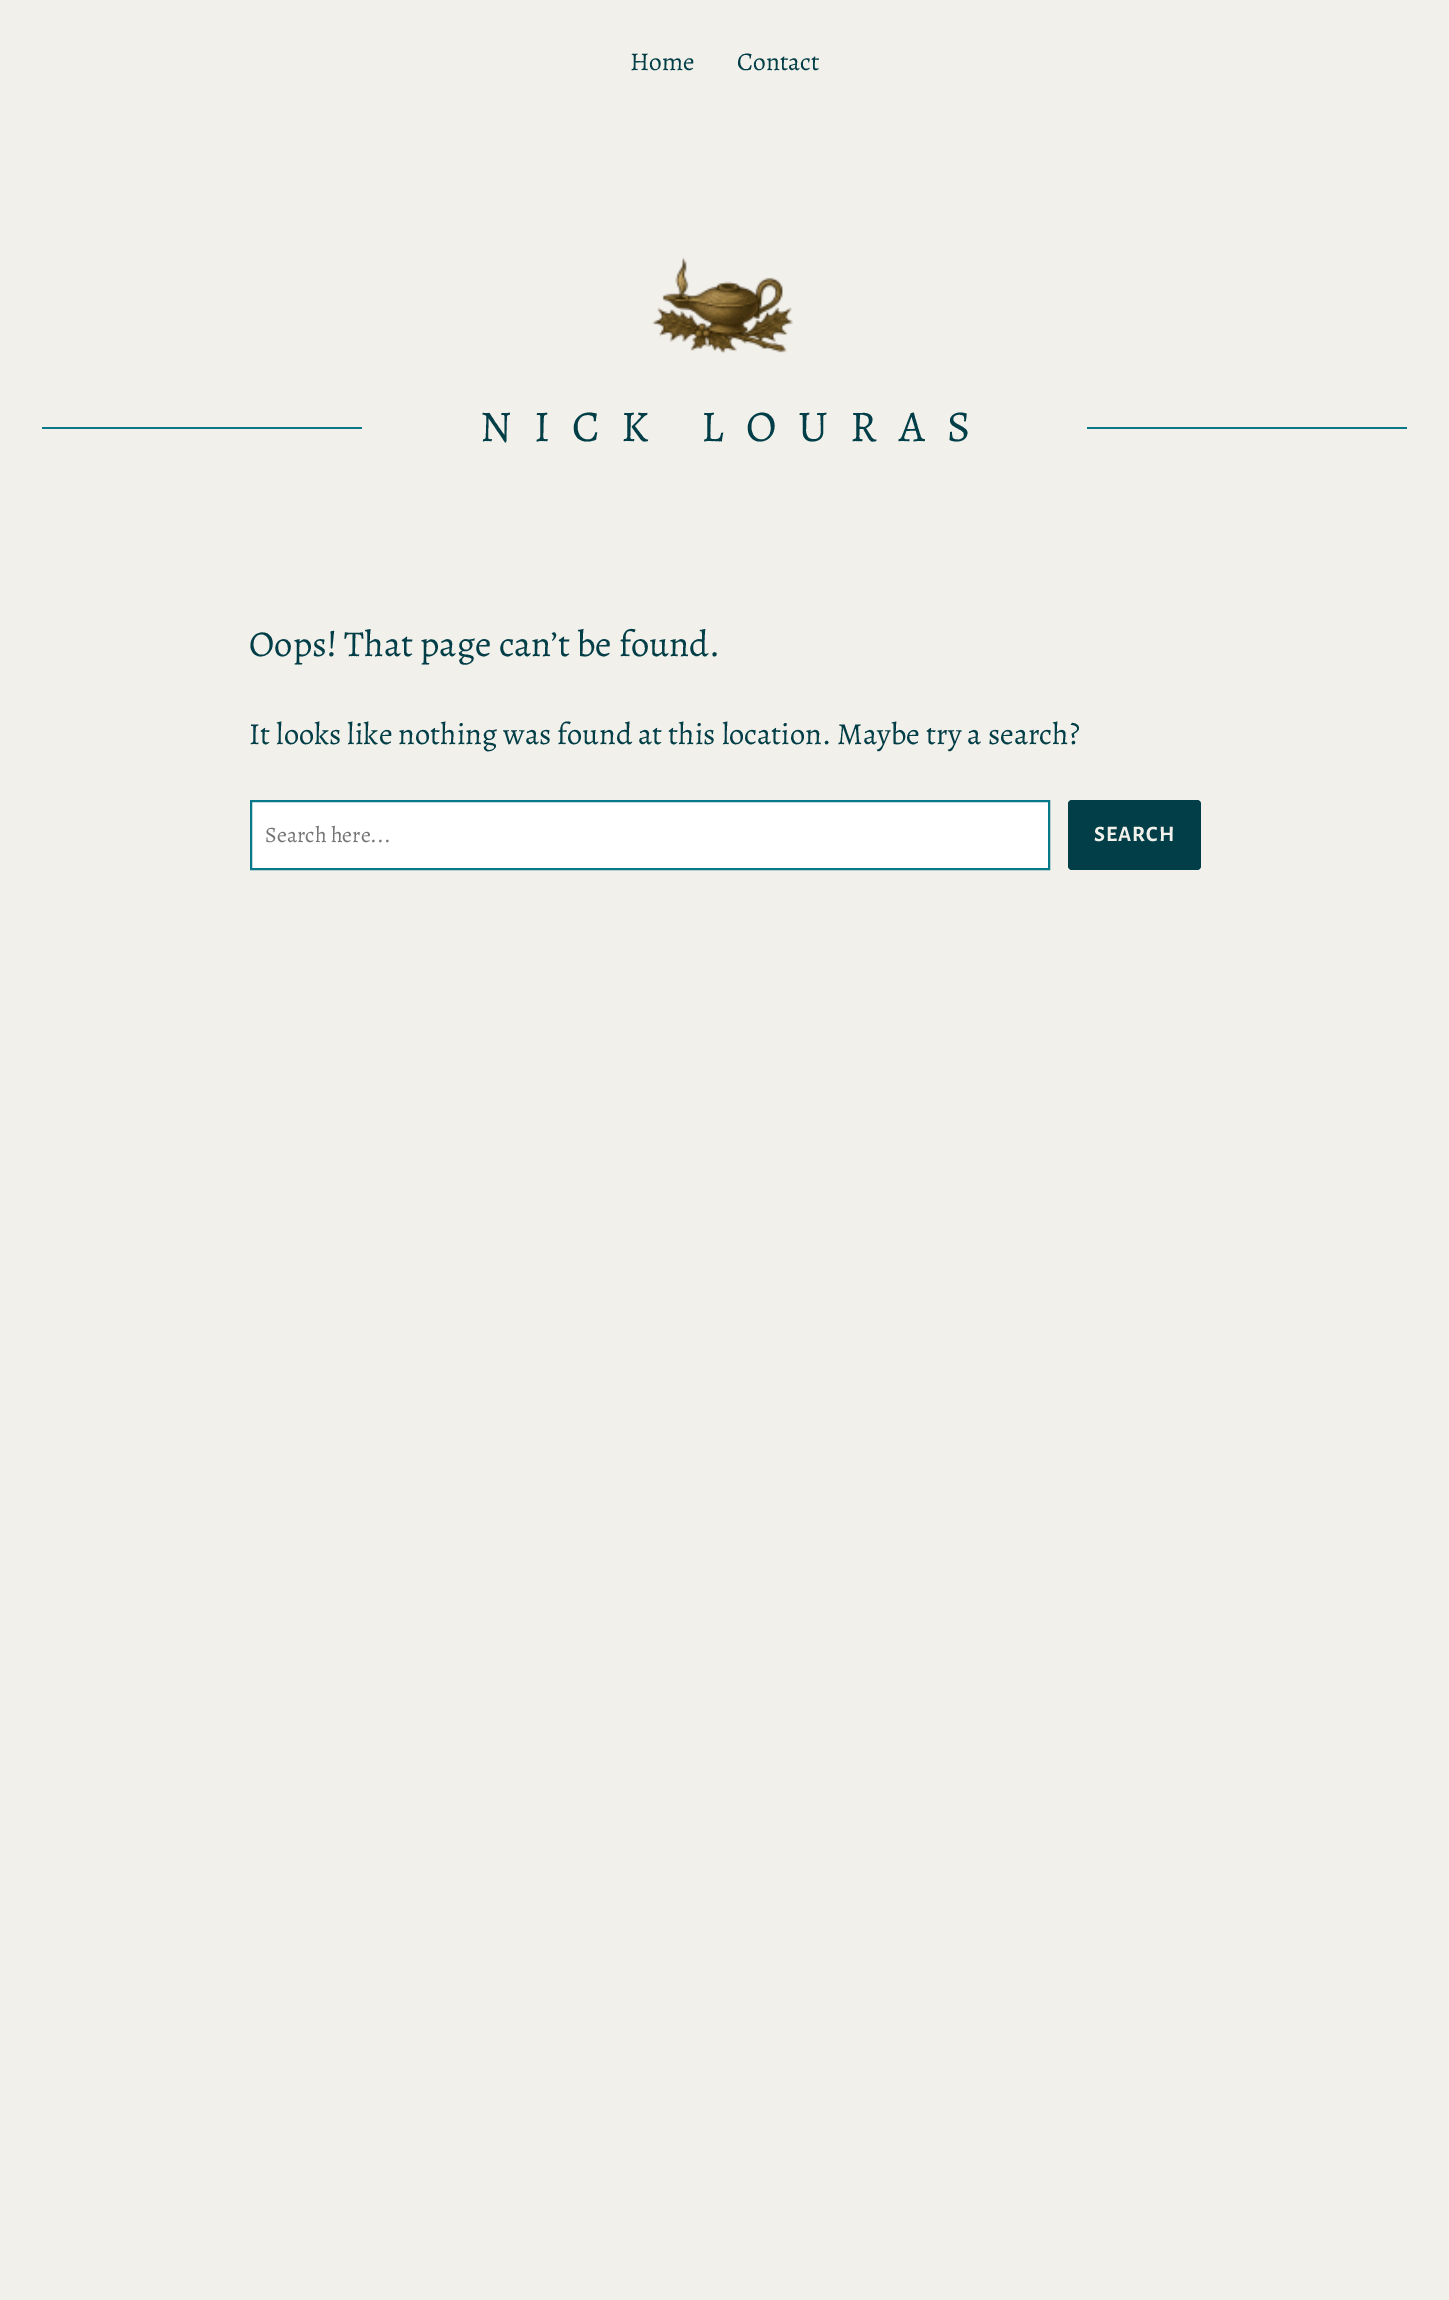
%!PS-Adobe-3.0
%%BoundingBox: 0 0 1449 2300
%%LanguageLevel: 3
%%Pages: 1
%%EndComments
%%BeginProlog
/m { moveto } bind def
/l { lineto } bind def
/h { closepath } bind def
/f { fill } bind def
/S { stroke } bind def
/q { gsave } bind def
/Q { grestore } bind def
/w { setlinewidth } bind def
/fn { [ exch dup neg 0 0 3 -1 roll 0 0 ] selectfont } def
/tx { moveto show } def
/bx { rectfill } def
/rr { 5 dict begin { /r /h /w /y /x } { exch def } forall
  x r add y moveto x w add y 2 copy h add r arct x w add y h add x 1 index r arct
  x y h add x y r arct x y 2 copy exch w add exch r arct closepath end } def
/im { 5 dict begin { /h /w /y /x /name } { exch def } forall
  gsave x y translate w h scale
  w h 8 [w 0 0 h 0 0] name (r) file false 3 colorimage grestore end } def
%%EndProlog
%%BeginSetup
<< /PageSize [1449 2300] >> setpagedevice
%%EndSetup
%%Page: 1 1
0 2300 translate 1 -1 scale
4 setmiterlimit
0.949 0.941 0.918 setrgbcolor
0 0 1449 2300 bx
/Alegreya-Regular 25.5 fn
0.008 0.243 0.278 setrgbcolor
(Home) 630 70 tx
(Contact) 737 70 tx
(image0.raw) 652 257 141 97 im
0.035 0.471 0.537 setrgbcolor
42 427 320 2 bx
/Alegreya-Regular 44 fn
0.008 0.243 0.278 setrgbcolor
480 441 m 22 0 (NICK LOURAS) ashow
0.035 0.471 0.537 setrgbcolor
1087 427 320 2 bx
/Alegreya-Regular 36.6 fn
0.008 0.243 0.278 setrgbcolor
(Oops! That page can’t be found.) 249 656 tx
/Alegreya-Regular 30.5 fn
(It looks like nothing was found at this location. Maybe try a search?) 249 744 tx
1 setgray
251 801 m 1049 801 l 1049 869 l 251 869 l h q f Q
0.035 0.471 0.537 setrgbcolor
2 w
S
/Alegreya-Regular 22 fn
0.459 setgray
(Search here...) 265 842 tx
0.008 0.243 0.278 setrgbcolor
1068 800 133 70 4 rr f
/AlegreyaSans-Bold 22 fn
0.949 0.941 0.918 setrgbcolor
1094 841 m 1 0 (SEARCH) ashow
showpage
%%EOF
